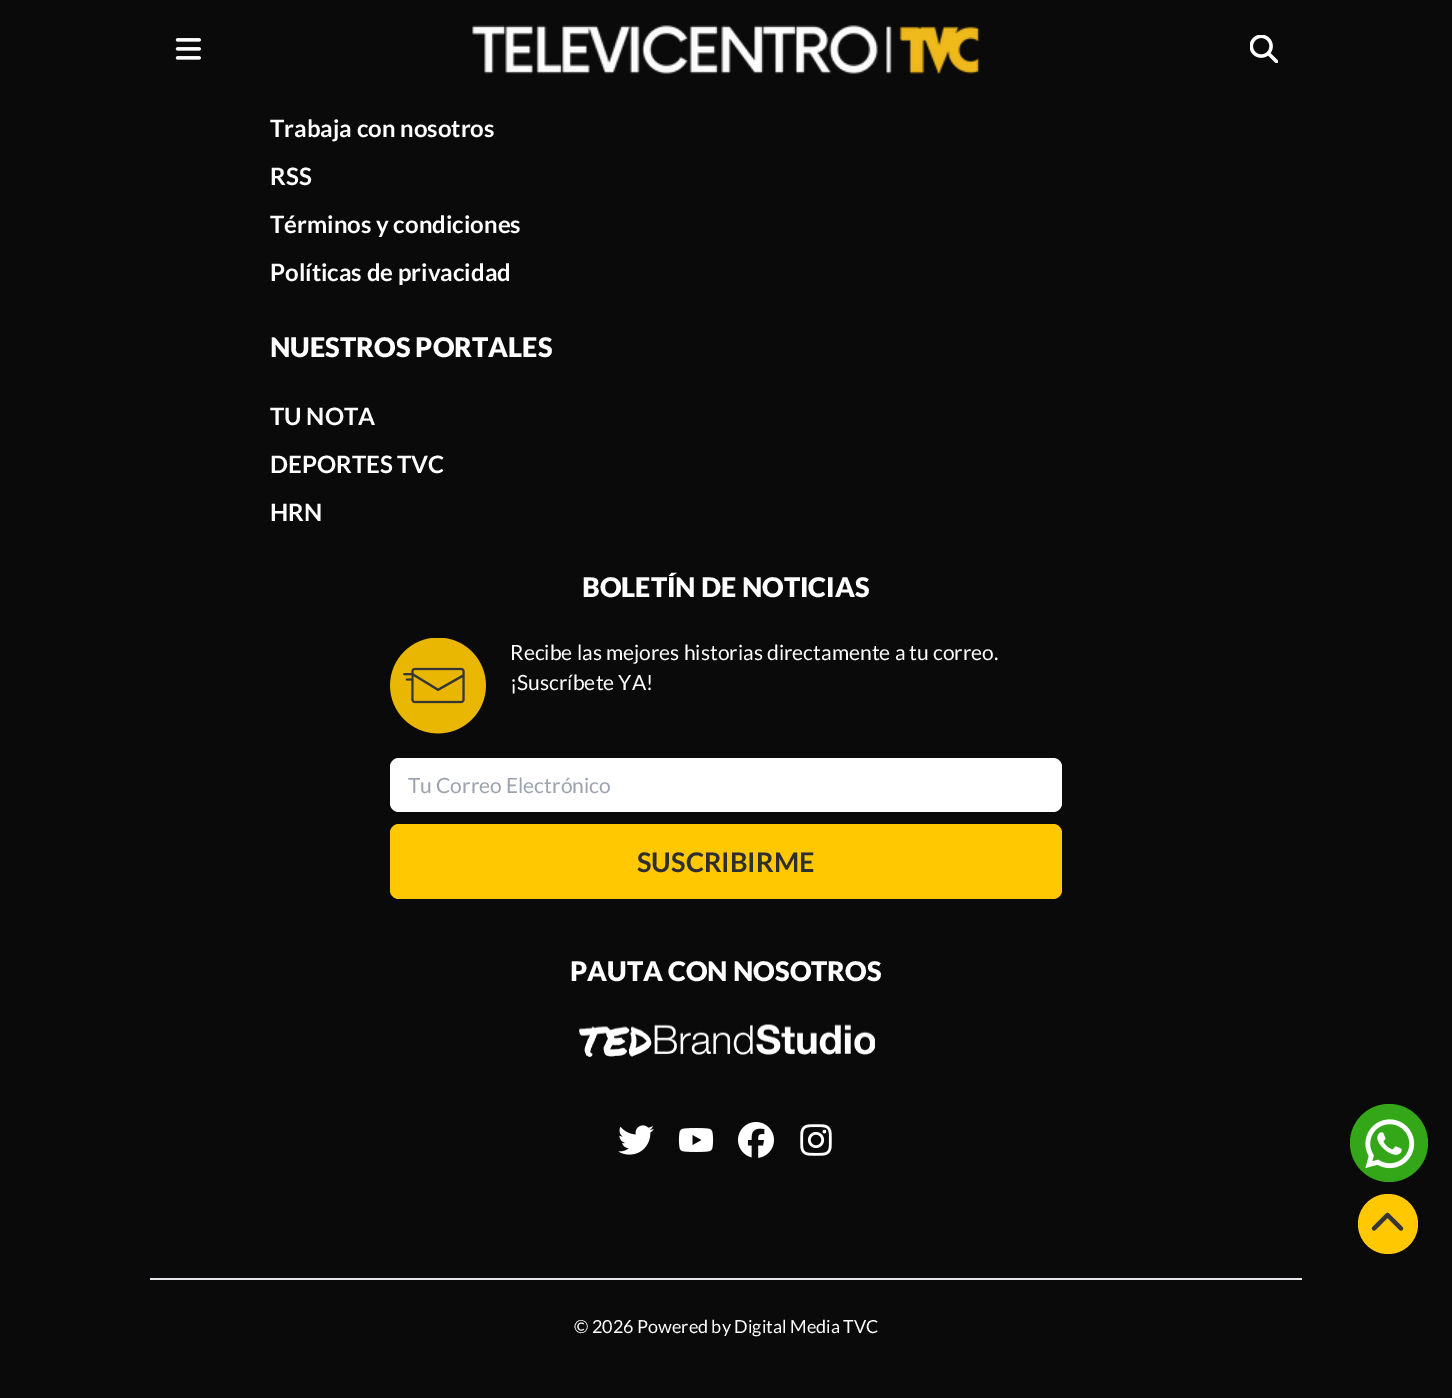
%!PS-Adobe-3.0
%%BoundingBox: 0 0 1452 1398
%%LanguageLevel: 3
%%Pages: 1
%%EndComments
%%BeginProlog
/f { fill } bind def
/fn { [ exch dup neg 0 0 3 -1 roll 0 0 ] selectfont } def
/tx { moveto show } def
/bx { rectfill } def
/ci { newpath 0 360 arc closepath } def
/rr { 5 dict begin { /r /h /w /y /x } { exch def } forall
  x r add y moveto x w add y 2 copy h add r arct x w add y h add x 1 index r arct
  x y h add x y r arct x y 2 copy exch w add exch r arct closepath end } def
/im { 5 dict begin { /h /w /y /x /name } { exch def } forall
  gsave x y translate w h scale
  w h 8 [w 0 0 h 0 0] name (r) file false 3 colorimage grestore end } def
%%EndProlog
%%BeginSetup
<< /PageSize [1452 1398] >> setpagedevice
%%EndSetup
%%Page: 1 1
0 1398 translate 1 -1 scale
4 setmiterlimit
0.039 setgray
0 0 1452 1398 bx
(image0.raw) 175 38 26 22 im
(image1.raw) 472 25 508 49 im
(image2.raw) 1250 35 28 28 im
/Lato-Bold 24 fn
1 setgray
(Trabaja con nosotros) 270 137 tx
(RSS) 270 185 tx
(Términos y condiciones) 270 233 tx
(Políticas de privacidad) 270 281 tx
/Lato-Black 27 fn
(NUESTROS PORTALES) 270 357 tx
/Lato-Bold 24 fn
(TU NOTA) 270 425 tx
(DEPORTES TVC) 270 473 tx
(HRN) 270 521 tx
/Lato-Black 27 fn
(BOLETÍN DE NOTICIAS) 582 597 tx
(image3.raw) 390 638 96 96 im
/Lato-Regular 21 fn
(Recibe las mejores historias directamente a tu correo.) 510 660 tx
(¡Suscríbete YA!) 510 690 tx
390 758 672 54 9 rr f
0.612 0.639 0.686 setrgbcolor
(Tu Correo Electrónico) 408 793 tx
1 0.784 0 setrgbcolor
390 824 672 75 9 rr f
/Lato-Bold 27 fn
0.18 setgray
(SUSCRIBIRME) 637 872 tx
/Lato-Black 27 fn
1 setgray
(PAUTA CON NOSOTROS) 570 981 tx
(image4.raw) 579 1024 296 34 im
(image5.raw) 618 1125 36 30 im
(image6.raw) 678 1128 36 24 im
(image7.raw) 738 1122 36 36 im
(image8.raw) 800 1124 32 32 im
0.898 0.906 0.922 setrgbcolor
150 1278 1152 2 bx
/Lato-Regular 18 fn
1 setgray
(© 2026 Powered by Digital Media TVC) 574 1333 tx
0.204 0.655 0.098 setrgbcolor
1389 1143 39 ci f
(image9.raw) 1365 1119 50 50 im
1 0.784 0 setrgbcolor
1388 1224 30 ci f
(image10.raw) 1371 1212 33 19 im
showpage
%%EOF
